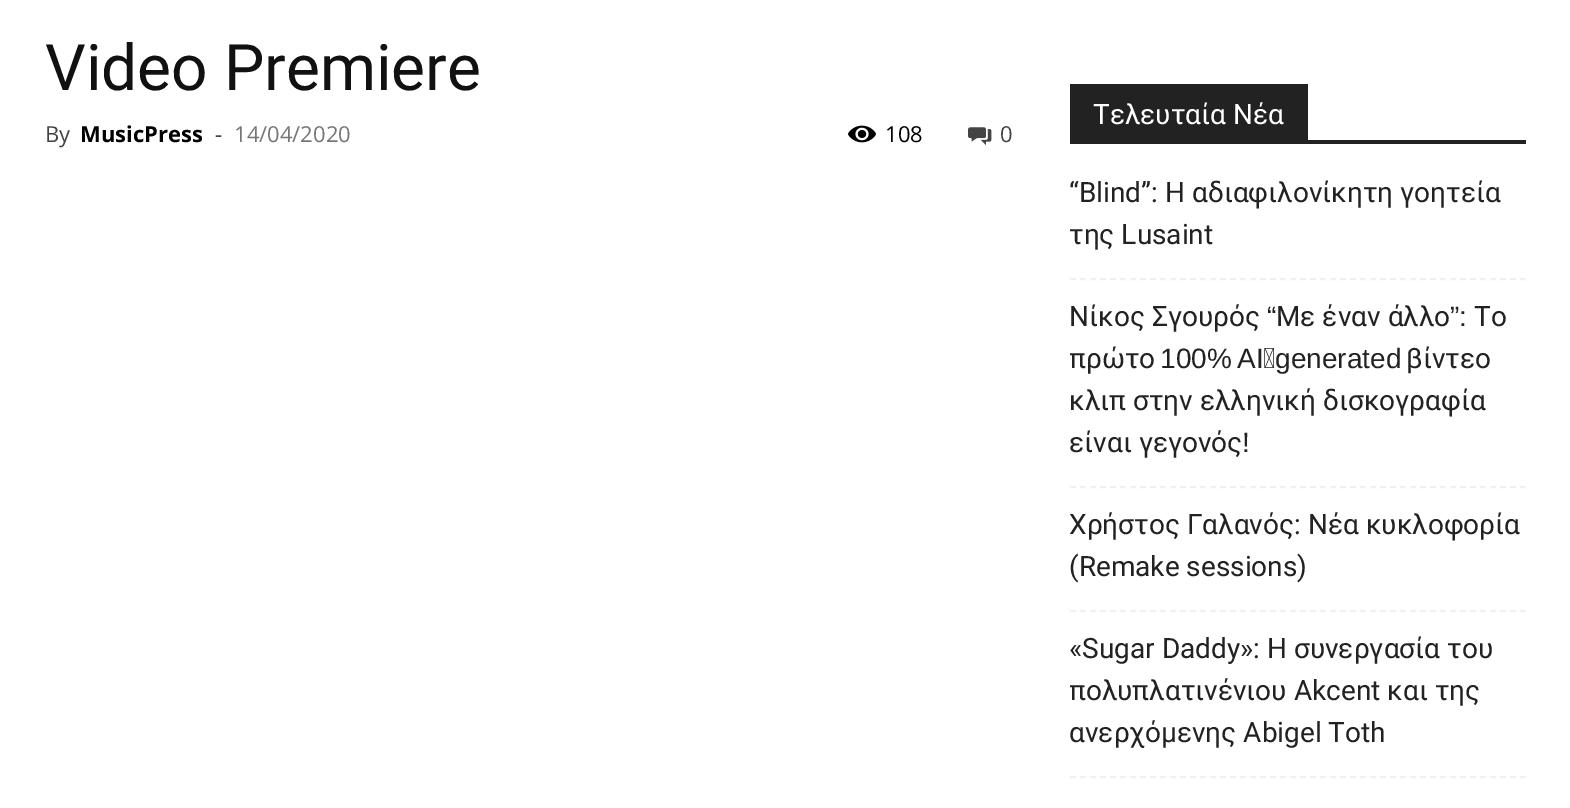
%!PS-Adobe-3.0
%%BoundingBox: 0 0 1570 808
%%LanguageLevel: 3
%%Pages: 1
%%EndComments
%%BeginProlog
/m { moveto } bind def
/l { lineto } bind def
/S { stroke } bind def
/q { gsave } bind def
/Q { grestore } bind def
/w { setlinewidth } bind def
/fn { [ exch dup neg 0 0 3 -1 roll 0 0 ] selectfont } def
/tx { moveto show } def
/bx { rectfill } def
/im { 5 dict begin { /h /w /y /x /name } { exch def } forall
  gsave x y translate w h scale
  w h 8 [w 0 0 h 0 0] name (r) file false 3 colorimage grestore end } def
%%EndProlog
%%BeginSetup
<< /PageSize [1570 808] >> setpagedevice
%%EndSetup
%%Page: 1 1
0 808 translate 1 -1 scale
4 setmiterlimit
1 setgray
0 0 1570 808 bx
/Roboto-Regular 64 fn
0.067 setgray
(Video Premiere) 45 90 tx
/OpenSans-Regular 22 fn
0.267 setgray
(By) 45 142 tx
/OpenSans-Bold 22 fn
0 setgray
(MusicPress) 80 142 tx
/OpenSans-Regular 22 fn
0.267 setgray
(-) 215 142 tx
0.463 setgray
(14/04/2020) 234 142 tx
(image0.raw) 848 125 28 18 im
0 setgray
(108) 885 142 tx
(image1.raw) 968 127 24 19 im
0.267 setgray
(0) 1000 142 tx
0.133 setgray
1070 140 456 4 bx
1070 84 238 56 bx
/Roboto-Regular 28 fn
1 setgray
(Τελευταία Νέα) 1093 124 tx
0.945 setgray
2 w
[6 4] 0 setdash
1070 279 m 1526 279 l S
0.133 setgray
(“Blind”: Η αδιαφιλονίκητη γοητεία) 1069 202 tx
(της Lusaint) 1069 244 tx
0.945 setgray
1070 487 m 1526 487 l S
0.133 setgray
(Νίκος Σγουρός) 1069 326 tx
/LiberationSans-Regular 28 fn
(“) 1267 326 tx
/Roboto-Regular 28 fn
(Με έναν άλλο) 1276 326 tx
/LiberationSans-Regular 28 fn
(”:) 1450 326 tx
/Roboto-Regular 28 fn
(Το) 1474 326 tx
q
1070 84 456 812 rectclip
(πρώτο) 1069 368 tx
Q
/LiberationSans-Regular 28 fn
1160 368 m -2 0 32 (100% AI) widthshow
/Roboto-Regular 28 fn
(‑) 1263 368 tx
/LiberationSans-Regular 28 fn
(generated) 1275 368 tx
/Roboto-Regular 28 fn
(βίντεο) 1406 368 tx
(κλιπ στην ελληνική δισκογραφία) 1069 410 tx
(είναι γεγονός) 1069 452 tx
/LiberationSans-Regular 28 fn
(!) 1242 452 tx
0.945 setgray
1070 611 m 1526 611 l S
/Roboto-Regular 28 fn
0.133 setgray
(Χρήστος Γαλανός: Νέα κυκλοφορία) 1069 534 tx
(\(Remake sessions\)) 1069 576 tx
0.945 setgray
1070 777 m 1526 777 l S
0.133 setgray
(«Sugar Daddy»: H συνεργασία του) 1069 658 tx
q
1070 84 456 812 rectclip
(πολυπλατινένιου Akcent και της) 1069 700 tx
Q
(ανερχόμενης Abigel Toth) 1069 742 tx
showpage
%%EOF
